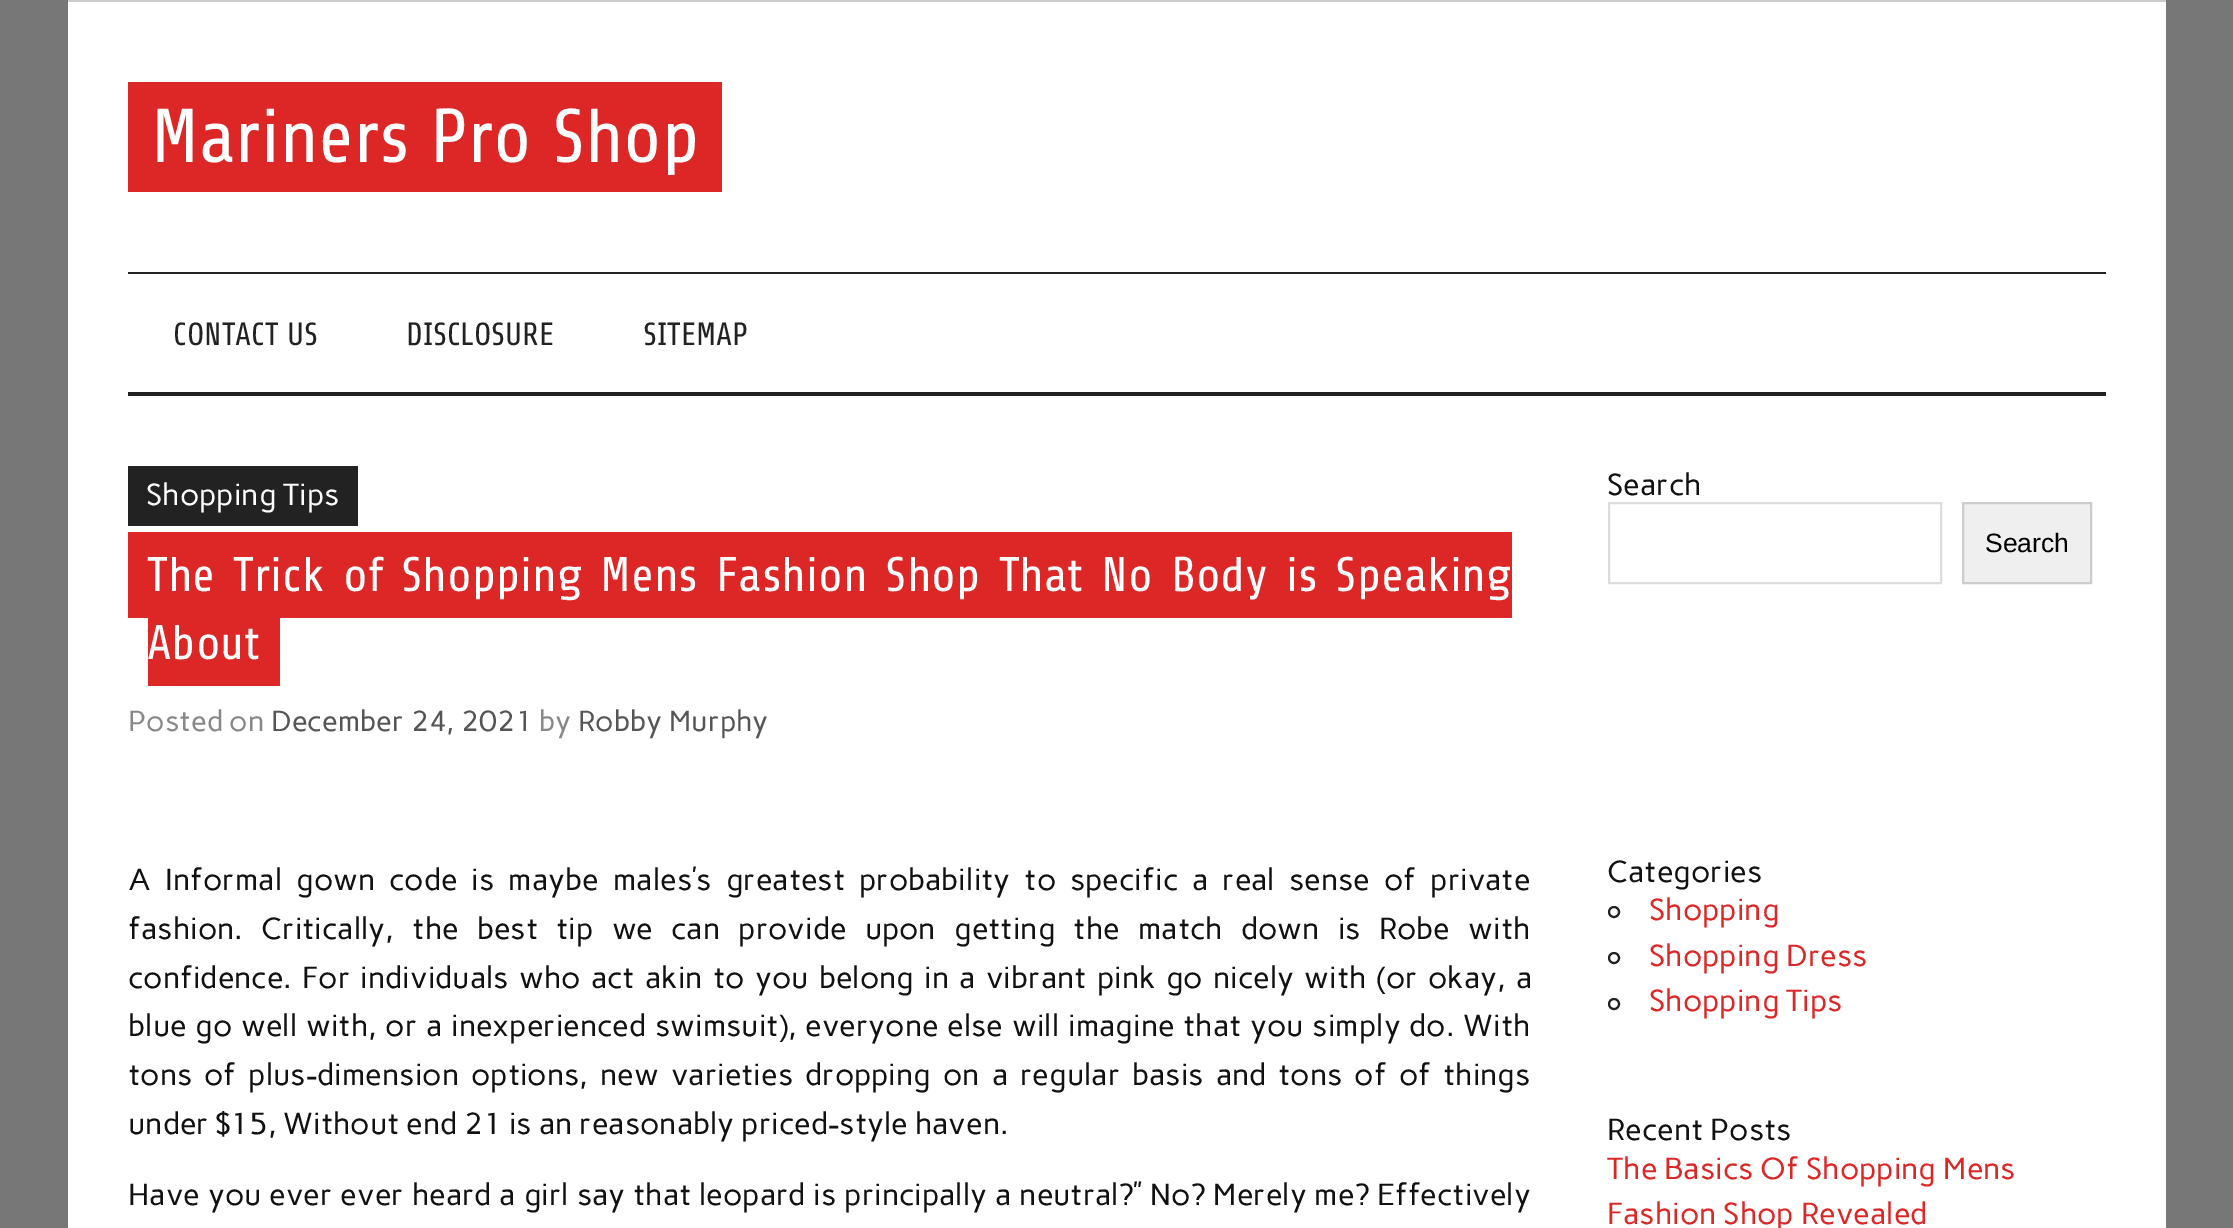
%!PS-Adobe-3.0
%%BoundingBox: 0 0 2233 1228
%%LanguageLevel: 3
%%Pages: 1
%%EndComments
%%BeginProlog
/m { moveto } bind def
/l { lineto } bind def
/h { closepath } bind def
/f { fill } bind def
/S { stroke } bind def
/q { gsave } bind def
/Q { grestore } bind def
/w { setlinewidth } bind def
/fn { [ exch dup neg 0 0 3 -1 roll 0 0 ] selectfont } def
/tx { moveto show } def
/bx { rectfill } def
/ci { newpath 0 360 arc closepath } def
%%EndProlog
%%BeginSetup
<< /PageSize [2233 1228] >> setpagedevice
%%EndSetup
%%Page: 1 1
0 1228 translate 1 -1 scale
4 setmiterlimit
0.467 setgray
0 0 2233 1228 bx
1 setgray
68 2 2098 1226 bx
0.8 setgray
68 0 2098 2 bx
0.867 0.153 0.153 setrgbcolor
128 82 594 110 bx
/Share-Regular 76 fn
1 setgray
(Mariners Pro Shop) 151 162 tx
0.133 setgray
128 272 1978 2 bx
128 392 1978 4 bx
/Share-Regular 32 fn
(CONTACT US) 173 345 tx
(DISCLOSURE) 406 345 tx
(SITEMAP) 643 345 tx
128 466 230 60 bx
/Carme-Regular 30.4 fn
1 setgray
(Shopping Tips) 146 505 tx
0.867 0.153 0.153 setrgbcolor
128 532 1384 86 bx
/Share-Regular 48.65 fn
1 setgray
147 591 m 5.6 0 32 (The Trick of Shopping Mens Fashion Shop That No Body is Speaking) widthshow
0.867 0.153 0.153 setrgbcolor
148 618 132 68 bx
1 setgray
(About) 147 659 tx
/Carme-Regular 28.9 fn
0.533 setgray
(Posted on) 128 731 tx
0.333 setgray
(December 24, 2021) 271 731 tx
0.533 setgray
(by) 539 731 tx
0.333 setgray
(Robby Murphy) 578 731 tx
/Carme-Regular 30.4 fn
0.067 setgray
128 890 m 7 0 32 (A Informal gown code is maybe males’s greatest probability to specific a real sense of private) widthshow
128 939 m 11.25 0 32 (fashion. Critically, the best tip we can provide upon getting the match down is Robe with) widthshow
128 988 m 3.25 0 32 (confidence. For individuals who act akin to you belong in a vibrant pink go nicely with \(or okay, a) widthshow
128 1036 m 1.75 0 32 (blue go well with, or a inexperienced swimsuit\), everyone else will imagine that you simply do. With) widthshow
128 1085 m 5 0 32 (tons of plus-dimension options, new varieties dropping on a regular basis and tons of of things) widthshow
(under $15, Without end 21 is an reasonably priced-style haven.) 128 1134 tx
128 1205 m 0.9 0 32 (Have you ever ever heard a girl say that leopard is principally a neutral?” No? Merely me? Effectively) widthshow
(Search) 1607 495 tx
0.867 setgray
2 w
1609 503 332 80 rectstroke
0.937 setgray
1963 503 m 2091 503 l 2091 583 l 1963 583 l h q f Q
0.8 setgray
S
/LiberationSans-Regular 26.5 fn
0 setgray
(Search) 1985 552 tx
/Carme-Regular 30.4 fn
0.067 setgray
(Categories) 1607 882 tx
0.133 setgray
1614 912 5 ci S
0.867 0.153 0.153 setrgbcolor
(Shopping) 1649 920 tx
0.133 setgray
1614 958 5 ci S
0.867 0.153 0.153 setrgbcolor
(Shopping Dress) 1649 966 tx
0.133 setgray
1614 1004 5 ci S
0.867 0.153 0.153 setrgbcolor
(Shopping Tips) 1649 1011 tx
0.067 setgray
(Recent Posts) 1607 1140 tx
0.867 0.153 0.153 setrgbcolor
(The Basics Of Shopping Mens) 1607 1179 tx
(Fashion Shop Revealed) 1607 1224 tx
showpage
%%EOF
